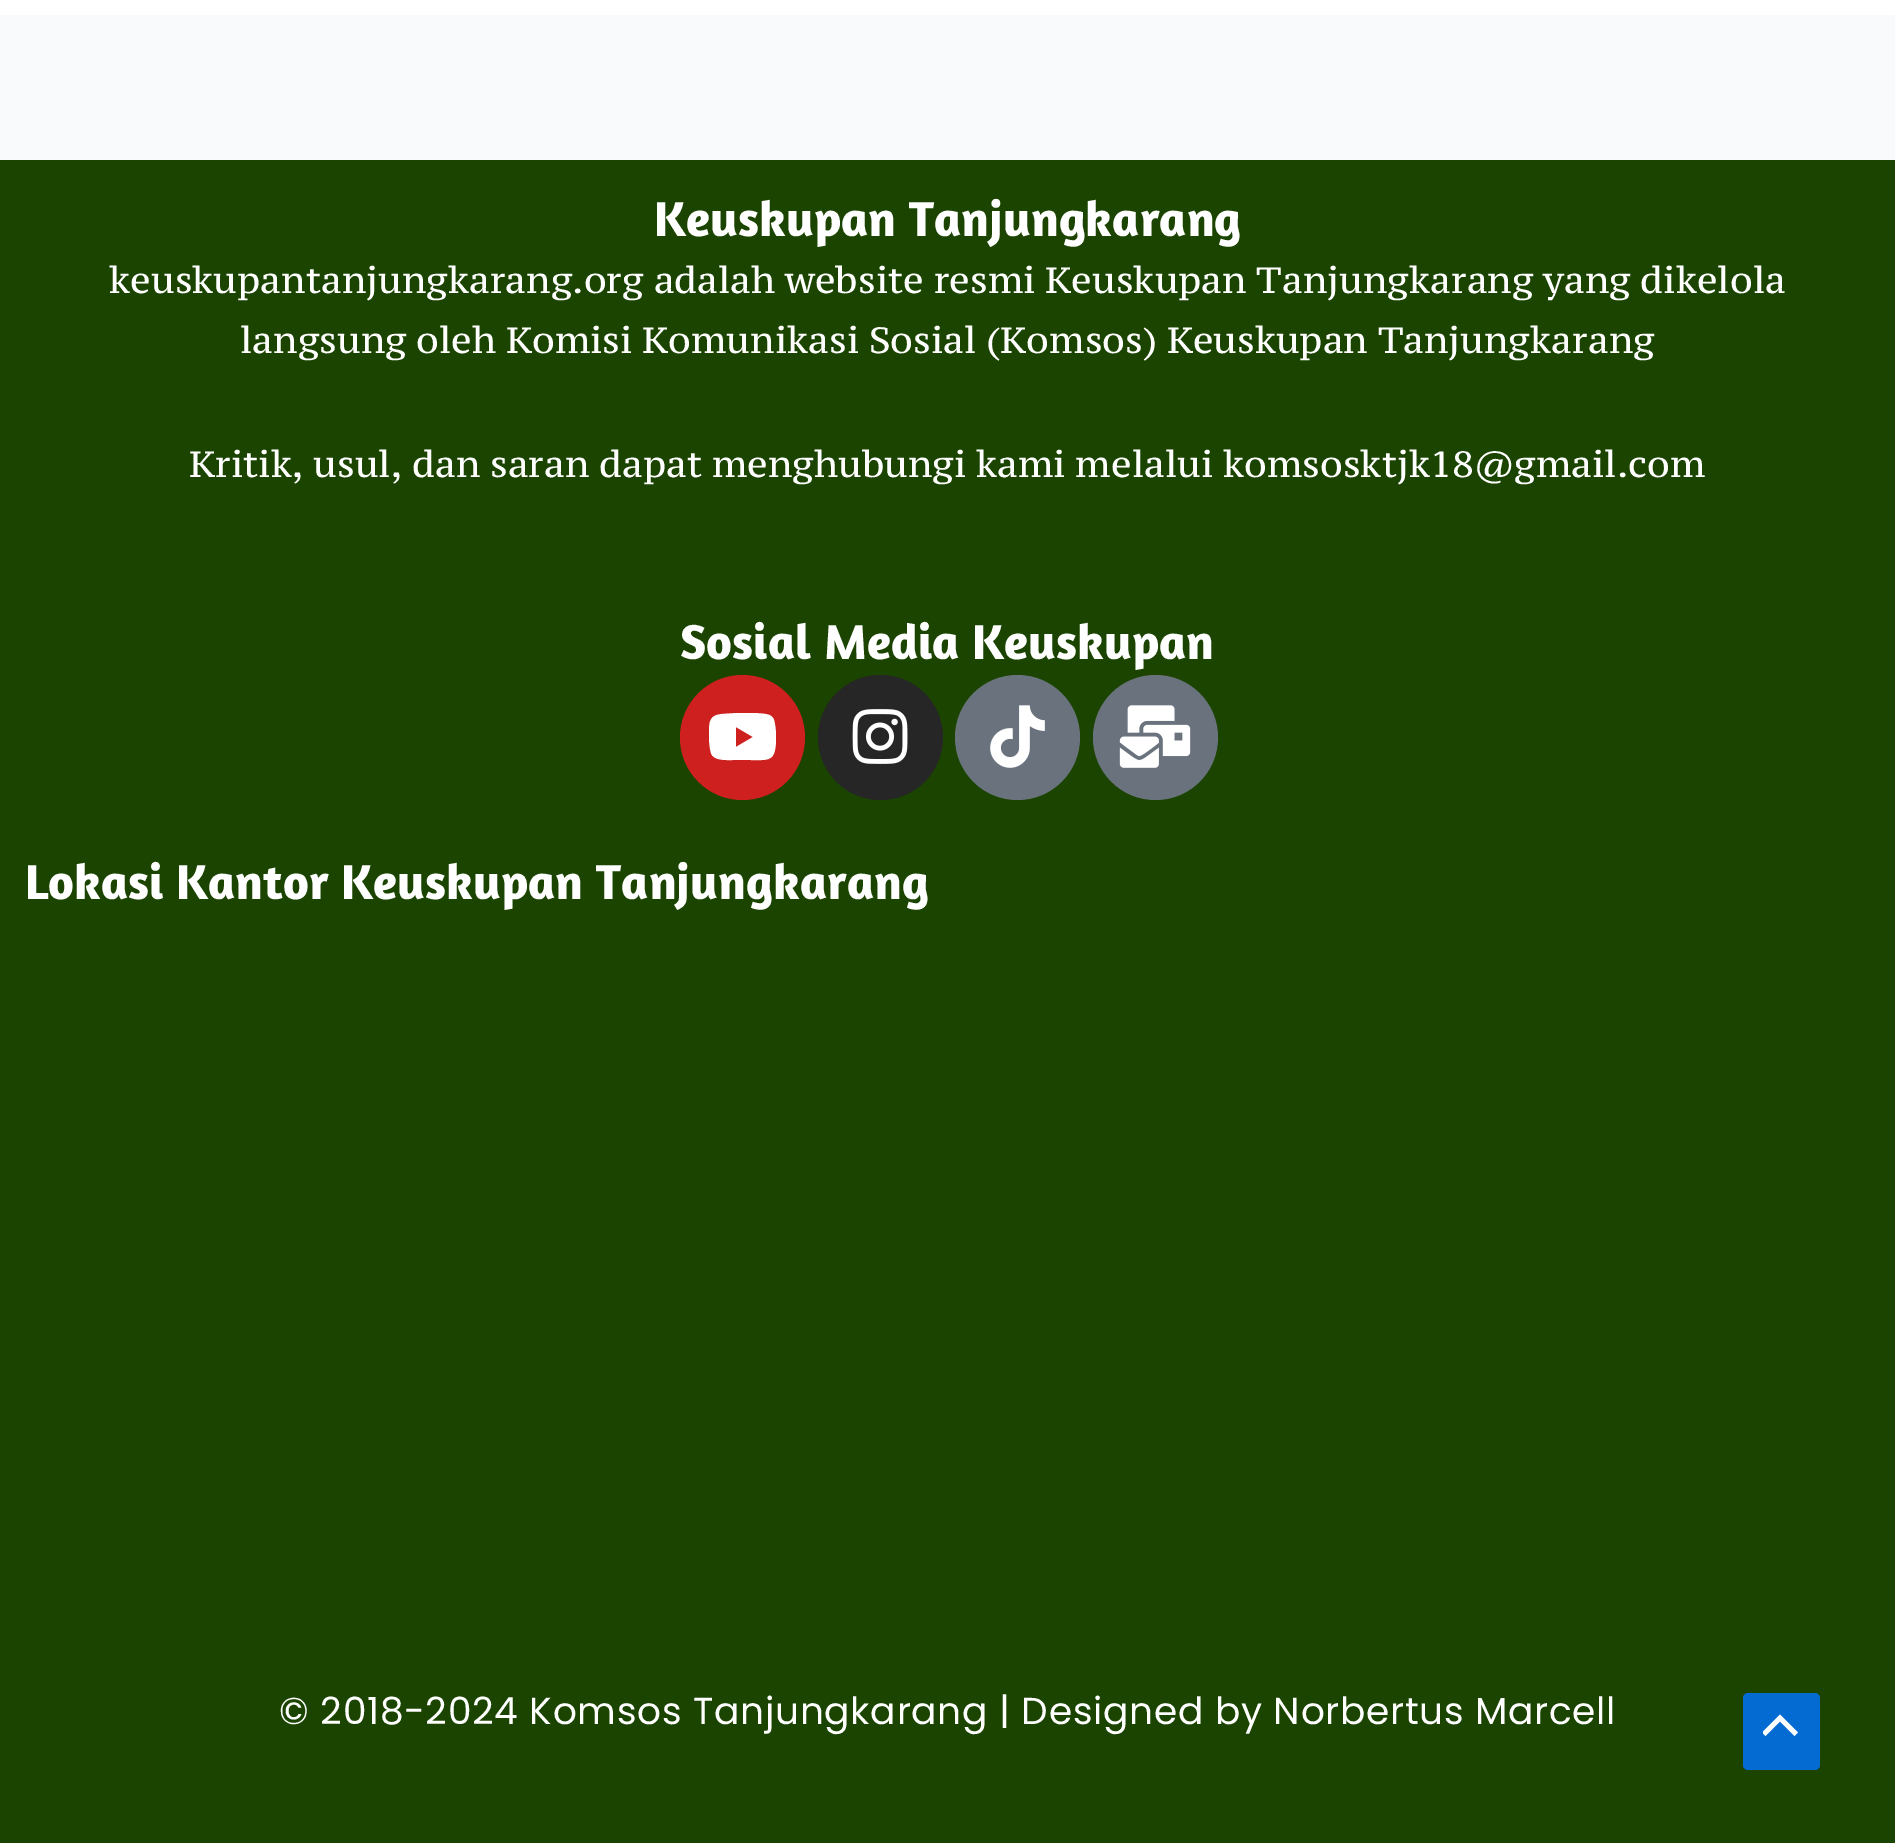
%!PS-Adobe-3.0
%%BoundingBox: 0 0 1895 1843
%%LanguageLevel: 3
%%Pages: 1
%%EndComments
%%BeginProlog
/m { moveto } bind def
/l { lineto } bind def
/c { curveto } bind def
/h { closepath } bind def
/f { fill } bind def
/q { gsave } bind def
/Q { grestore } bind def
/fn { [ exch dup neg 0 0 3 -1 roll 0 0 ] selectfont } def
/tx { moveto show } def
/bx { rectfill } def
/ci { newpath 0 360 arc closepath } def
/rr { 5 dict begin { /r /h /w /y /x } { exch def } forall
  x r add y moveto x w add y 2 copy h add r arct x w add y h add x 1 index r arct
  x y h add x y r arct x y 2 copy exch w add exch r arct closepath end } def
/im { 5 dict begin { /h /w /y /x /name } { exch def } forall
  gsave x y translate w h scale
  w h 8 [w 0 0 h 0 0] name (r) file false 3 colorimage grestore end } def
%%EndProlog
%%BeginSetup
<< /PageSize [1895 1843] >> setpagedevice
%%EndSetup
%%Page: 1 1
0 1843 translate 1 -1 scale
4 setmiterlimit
0.976 0.98 0.984 setrgbcolor
0 0 1895 1843 bx
1 setgray
0 0 1895 15 bx
0.102 0.267 0 setrgbcolor
0 160 1895 1683 bx
/Amaranth-Bold 50 fn
1 setgray
(Keuskupan Tanjungkarang) 654 236 tx
/PTSerifCaption-Regular 36.5 fn
109 293 m -0.25 0 32 (keuskupantanjungkarang.org adalah website resmi Keuskupan Tanjungkarang yang dikelola) widthshow
240 353 m -0.25 0 32 (langsung oleh Komisi Komunikasi Sosial \(Komsos\) Keuskupan Tanjungkarang) widthshow
189 477 m -0.25 0 32 (Kritik, usul, dan saran dapat menghubungi kami melalui komsosktjk18@gmail.com) widthshow
/Amaranth-Bold 50 fn
(Sosial Media Keuskupan) 680 659 tx
0.804 0.125 0.122 setrgbcolor
742.5 737.5 62.5 ci f
1 setgray
774 720 m 776 727 776 734 776 741 c 775 762 769 760 750 760 c 733 760 l 727 760 713 761 711 753 c 709 746 709 739 709 732 c 709 721 710 715 722 714 c 737 713 l 756 713 l 763 714 772 713 774 720 c h 736 747 m 753 737 l 736 727 l h f
0.149 setgray
880.5 737.5 62.5 ci f
(image0.raw) 852 709 56 55 im
0.412 0.447 0.49 setrgbcolor
1017.5 737.5 62.5 ci f
(image1.raw) 990 705 55 63 im
1155.5 737.5 62.5 ci f
(image2.raw) 1119 705 72 63 im
1 setgray
(Lokasi Kantor Keuskupan Tanjungkarang) 25 899 tx
/Poppins-Regular 37.5 fn
279 1724 m 0.75 0 (© 2018-2024 Komsos Tanjungkarang | Designed by Norbertus Marcell) ashow
0.016 0.42 0.824 setrgbcolor
1743 1693 77 77 5 rr f
q
1763 1710 37 30 rectclip
1 setgray
1798 1732.5 m 1780 1714.5 l 1762 1732.5 l 1765.5 1736 l 1780 1721.5 l 1794.5 1736 l h f
Q
showpage
%%EOF
